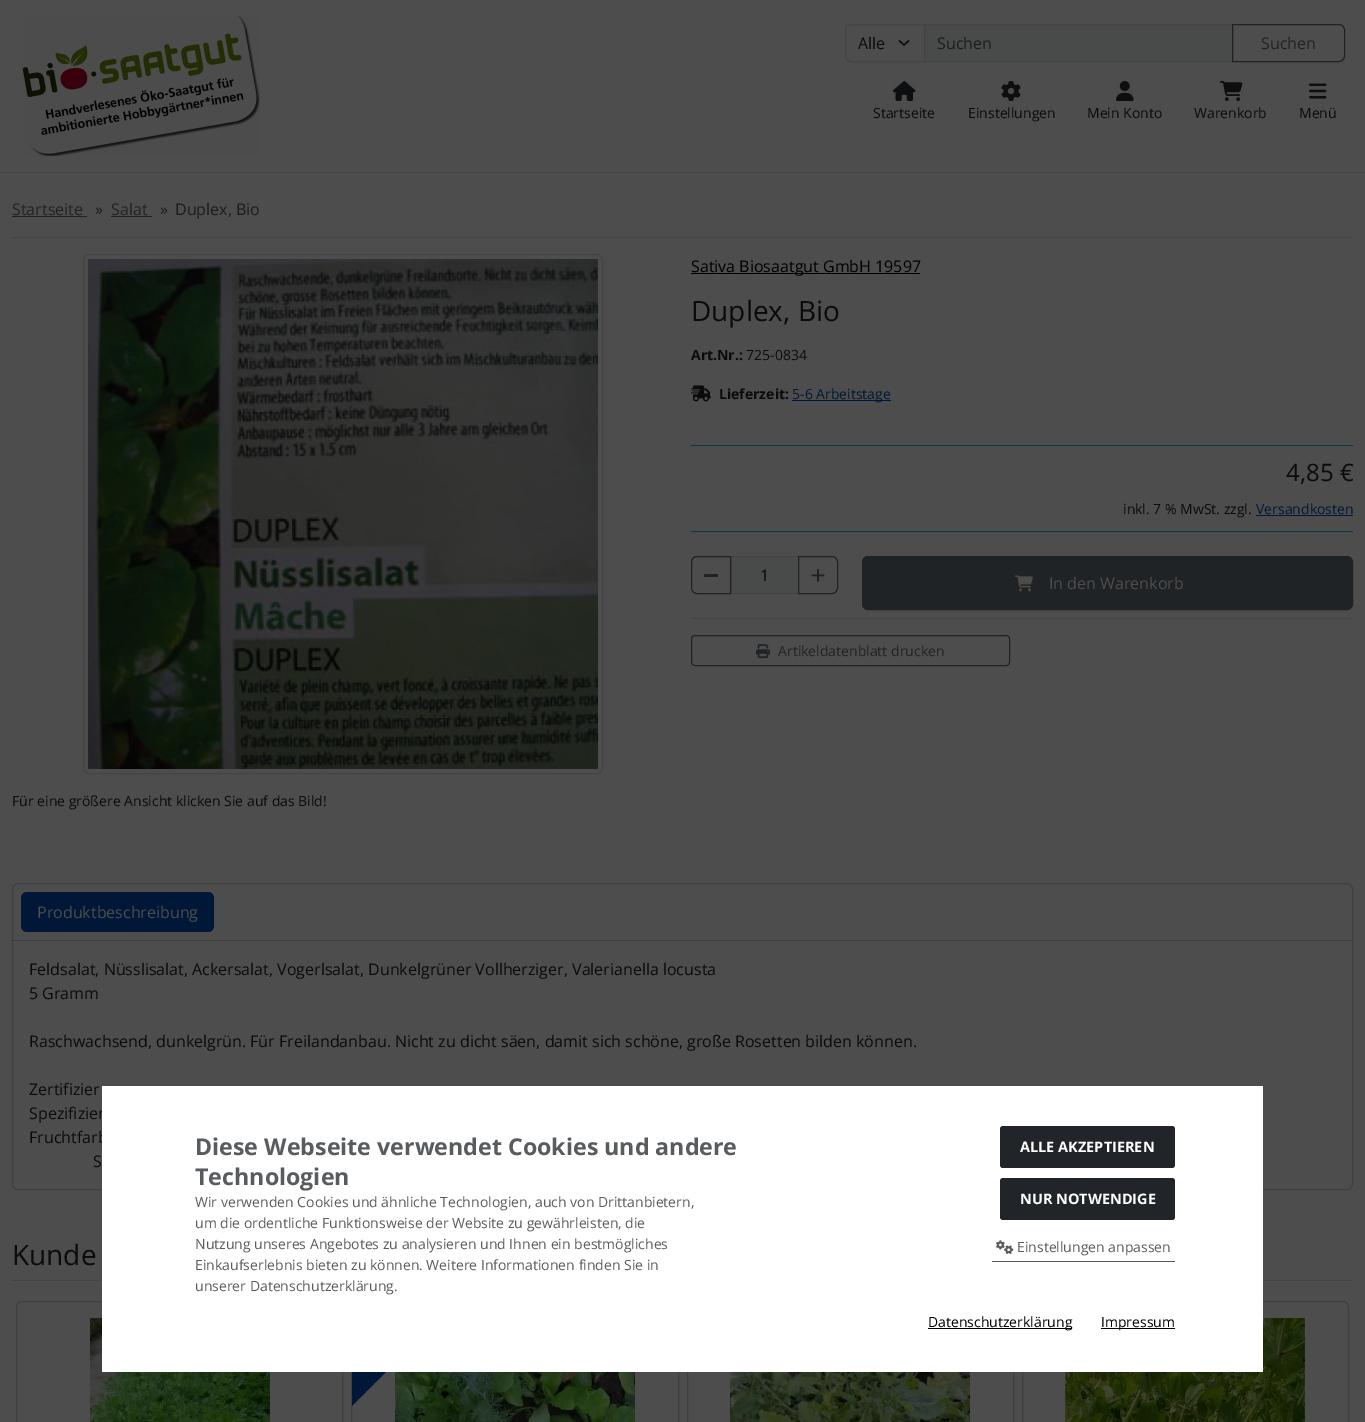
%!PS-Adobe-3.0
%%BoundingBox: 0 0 1365 1422
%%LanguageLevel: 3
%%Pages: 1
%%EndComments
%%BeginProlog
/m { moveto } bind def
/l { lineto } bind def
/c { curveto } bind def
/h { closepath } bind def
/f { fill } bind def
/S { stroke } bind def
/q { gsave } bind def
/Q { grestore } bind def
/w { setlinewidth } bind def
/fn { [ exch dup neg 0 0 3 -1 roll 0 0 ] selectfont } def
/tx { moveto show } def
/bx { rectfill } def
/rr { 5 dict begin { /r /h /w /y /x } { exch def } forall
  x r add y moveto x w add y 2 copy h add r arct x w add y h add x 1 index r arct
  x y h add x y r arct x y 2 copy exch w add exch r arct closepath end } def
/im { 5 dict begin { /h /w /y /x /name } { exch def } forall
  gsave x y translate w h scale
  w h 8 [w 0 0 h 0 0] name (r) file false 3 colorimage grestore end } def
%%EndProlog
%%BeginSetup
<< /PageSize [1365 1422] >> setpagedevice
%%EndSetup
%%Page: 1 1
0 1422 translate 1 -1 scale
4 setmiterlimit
0.302 setgray
0 0 1365 1422 bx
0.263 0.267 0.271 setrgbcolor
0 172 1365 1 bx
(image0.raw) 22 16 238 140 im
0.063 0.067 0.075 setrgbcolor
1.5 w
1 setlinecap
1 setlinejoin
899.5 41 m 904 45 l 908.5 41 l S
0.263 0.267 0.271 setrgbcolor
1 w
0 setlinecap
0 setlinejoin
851 24.5 m 924.5 24.5 l 924.5 61.5 l 851 61.5 l 848 61.5 845.5 59 845.5 56 c 845.5 30 l 845.5 27 848 24.5 851 24.5 c h S
/OpenSans-Regular 16 fn
0.039 0.043 0.047 setrgbcolor
(Alle) 858 49 tx
0.286 0.29 0.29 setrgbcolor
924.5 24.5 m 1232.5 24.5 l 1232.5 61.5 l 924.5 61.5 l h q f Q
0.263 0.267 0.271 setrgbcolor
S
0.106 0.11 0.114 setrgbcolor
(Suchen) 937 49 tx
0.125 0.137 0.149 setrgbcolor
1232.5 24.5 m 1339 24.5 l 1342 24.5 1344.5 27 1344.5 30 c 1344.5 56 l 1344.5 59 1342 61.5 1339 61.5 c 1232.5 61.5 l h S
(Suchen) 1261 49 tx
(image1.raw) 893 81 23 20 im
/OpenSans-Regular 14 fn
0.039 0.043 0.047 setrgbcolor
(Startseite) 873 118 tx
(image2.raw) 1001 81 20 20 im
(Einstellungen) 968 118 tx
(image3.raw) 1116 81 18 20 im
(Mein Konto) 1087 118 tx
(image4.raw) 1220 81 23 20 im
(Warenkorb) 1194 118 tx
(image5.raw) 1309 83 18 16 im
(Menü) 1299 118 tx
0.263 0.267 0.271 setrgbcolor
12 237 1341 1 bx
/OpenSans-Regular 16 fn
0.125 0.137 0.149 setrgbcolor
(Startseite) 12 215 tx
12 216 75 1 bx
0.106 0.11 0.114 setrgbcolor
(») 95 215 tx
0.125 0.137 0.149 setrgbcolor
(Salat) 111 215 tx
111 216 41 1 bx
0.106 0.11 0.114 setrgbcolor
(») 160 215 tx
(Duplex, Bio) 175 215 tx
0 setgray
691 273 229 1 bx
(Sativa Biosaatgut GmbH 19597) 691 272 tx
/OpenSans-Regular 28 fn
0.039 0.043 0.047 setrgbcolor
(Duplex, Bio) 691 321 tx
/OpenSans-Bold 14 fn
(Art.Nr.:) 691 360 tx
/OpenSans-Regular 14 fn
(725-0834) 746 360 tx
(image6.raw) 691 385 20 17 im
/OpenSans-Bold 14 fn
(Lieferzeit:) 719 399 tx
0.004 0.09 0.216 setrgbcolor
792 400 99 1 bx
/OpenSans-Regular 14 fn
(5-6 Arbeitstage) 792 399 tx
0.016 0.239 0.282 setrgbcolor
691 445 662 1 bx
691 531 662 1 bx
/OpenSans-Regular 24 fn
0.039 0.043 0.047 setrgbcolor
(4,85 €) 1286 481 tx
/OpenSans-Regular 14 fn
(inkl. 7 % MwSt. zzgl.) 1123 514 tx
0.004 0.09 0.216 setrgbcolor
(Versandkosten) 1256 514 tx
1256 515 97 1 bx
0.263 0.267 0.271 setrgbcolor
691 618 662 1 bx
0.286 0.29 0.29 setrgbcolor
730.5 556.5 m 798.5 556.5 l 798.5 593.5 l 730.5 593.5 l h q f Q
0.263 0.267 0.271 setrgbcolor
S
0.125 0.137 0.149 setrgbcolor
697 556.5 m 730.5 556.5 l 730.5 593.5 l 697 593.5 l 694 593.5 691.5 591 691.5 588 c 691.5 562 l 691.5 559 694 556.5 697 556.5 c h S
704 574 14 3 bx
/OpenSans-Regular 16 fn
0.039 0.043 0.047 setrgbcolor
(1) 760 581 tx
0.125 0.137 0.149 setrgbcolor
798.5 556.5 m 832 556.5 l 835 556.5 837.5 559 837.5 562 c 837.5 588 l 837.5 591 835 593.5 832 593.5 c 798.5 593.5 l h S
(image7.raw) 811 569 14 13 im
862.5 556.5 490 53 5.5 rr q f Q
S
(image8.raw) 1015 575 18 17 im
0.302 setgray
(In den Warenkorb) 1049 589 tx
0.125 0.137 0.149 setrgbcolor
691.5 635.5 318 30 3.5 rr S
(image9.raw) 756 644 14 15 im
/OpenSans-Regular 14 fn
(Artikeldatenblatt drucken) 778 656 tx
0.263 0.267 0.271 setrgbcolor
83.5 254.5 519 519 5.5 rr S
(image10.raw) 88 259 510 510 im
0.039 0.043 0.047 setrgbcolor
(Für eine größere Ansicht klicken Sie auf das Bild!) 12 806 tx
0.247 setgray
12.5 883.5 1340 306 5.5 rr S
0.243 setgray
13 940 1339 1 bx
0.004 0.09 0.216 setrgbcolor
21 892 193 40 6 rr f
/OpenSans-Regular 16 fn
0.302 setgray
(Produktbeschreibung) 37 918 tx
0.039 0.043 0.047 setrgbcolor
(Feldsalat, Nüsslisalat, Ackersalat, Vogerlsalat, Dunkelgrüner Vollherziger, Valerianella locusta) 29 975 tx
(5 Gramm) 29 999 tx
(Raschwachsend, dunkelgrün. Für Freilandanbau. Nicht zu dicht säen, damit sich schöne, große Rosetten bilden können.) 29 1047 tx
(Zertifizier) 29 1095 tx
(Spezifizier) 29 1119 tx
(Fruchtfarb) 29 1143 tx
(S) 93 1167 tx
0.263 0.267 0.271 setrgbcolor
12 1280 1341 1 bx
/OpenSans-Regular 28 fn
0.039 0.043 0.047 setrgbcolor
(Kunde) 12 1265 tx
0.247 setgray
16.5 1301.5 326 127 5.5 rr S
(image11.raw) 90 1318 180 104 im
351.5 1301.5 327 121 rectstroke
(image12.raw) 395 1372 240 50 im
0.004 0.09 0.216 setrgbcolor
456 1302 m 352 1406 l 352 1361 l 412 1302 l h f
0.247 setgray
687.5 1301.5 326 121 rectstroke
(image13.raw) 730 1372 240 50 im
1022.5 1301.5 326 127 5.5 rr S
(image14.raw) 1065 1318 240 104 im
1 setgray
102 1086 1161 286 bx
/OpenSans-Bold 23.2 fn
0.349 0.361 0.373 setrgbcolor
(Diese Webseite verwendet Cookies und andere) 195 1155 tx
(Technologien) 195 1185 tx
/OpenSans-Regular 14 fn
(Wir verwenden Cookies und ähnliche Technologien, auch von Drittanbietern,) 195 1207 tx
(um die ordentliche Funktionsweise der Website zu gewährleisten, die) 195 1228 tx
(Nutzung unseres Angebotes zu analysieren und Ihnen ein bestmögliches) 195 1249 tx
(Einkaufserlebnis bieten zu können. Weitere Informationen finden Sie in) 195 1270 tx
(unserer Datenschutzerklärung.) 195 1291 tx
0.129 0.145 0.161 setrgbcolor
1000 1126 175 42 3 rr f
/OpenSans-Bold 14.5 fn
1 setgray
(ALLE AKZEPTIEREN) 1020 1152 tx
0.129 0.145 0.161 setrgbcolor
1000 1178 175 42 3 rr f
1 setgray
(NUR NOTWENDIGE) 1020 1204 tx
0.349 0.361 0.373 setrgbcolor
992 1261 183 1 bx
(image15.raw) 996 1240 18 14 im
/OpenSans-Regular 14 fn
(Einstellungen anpassen) 1017 1252 tx
0 setgray
928 1328 144 1 bx
(Datenschutzerklärung) 928 1327 tx
1101 1328 74 1 bx
(Impressum) 1101 1327 tx
showpage
%%EOF
